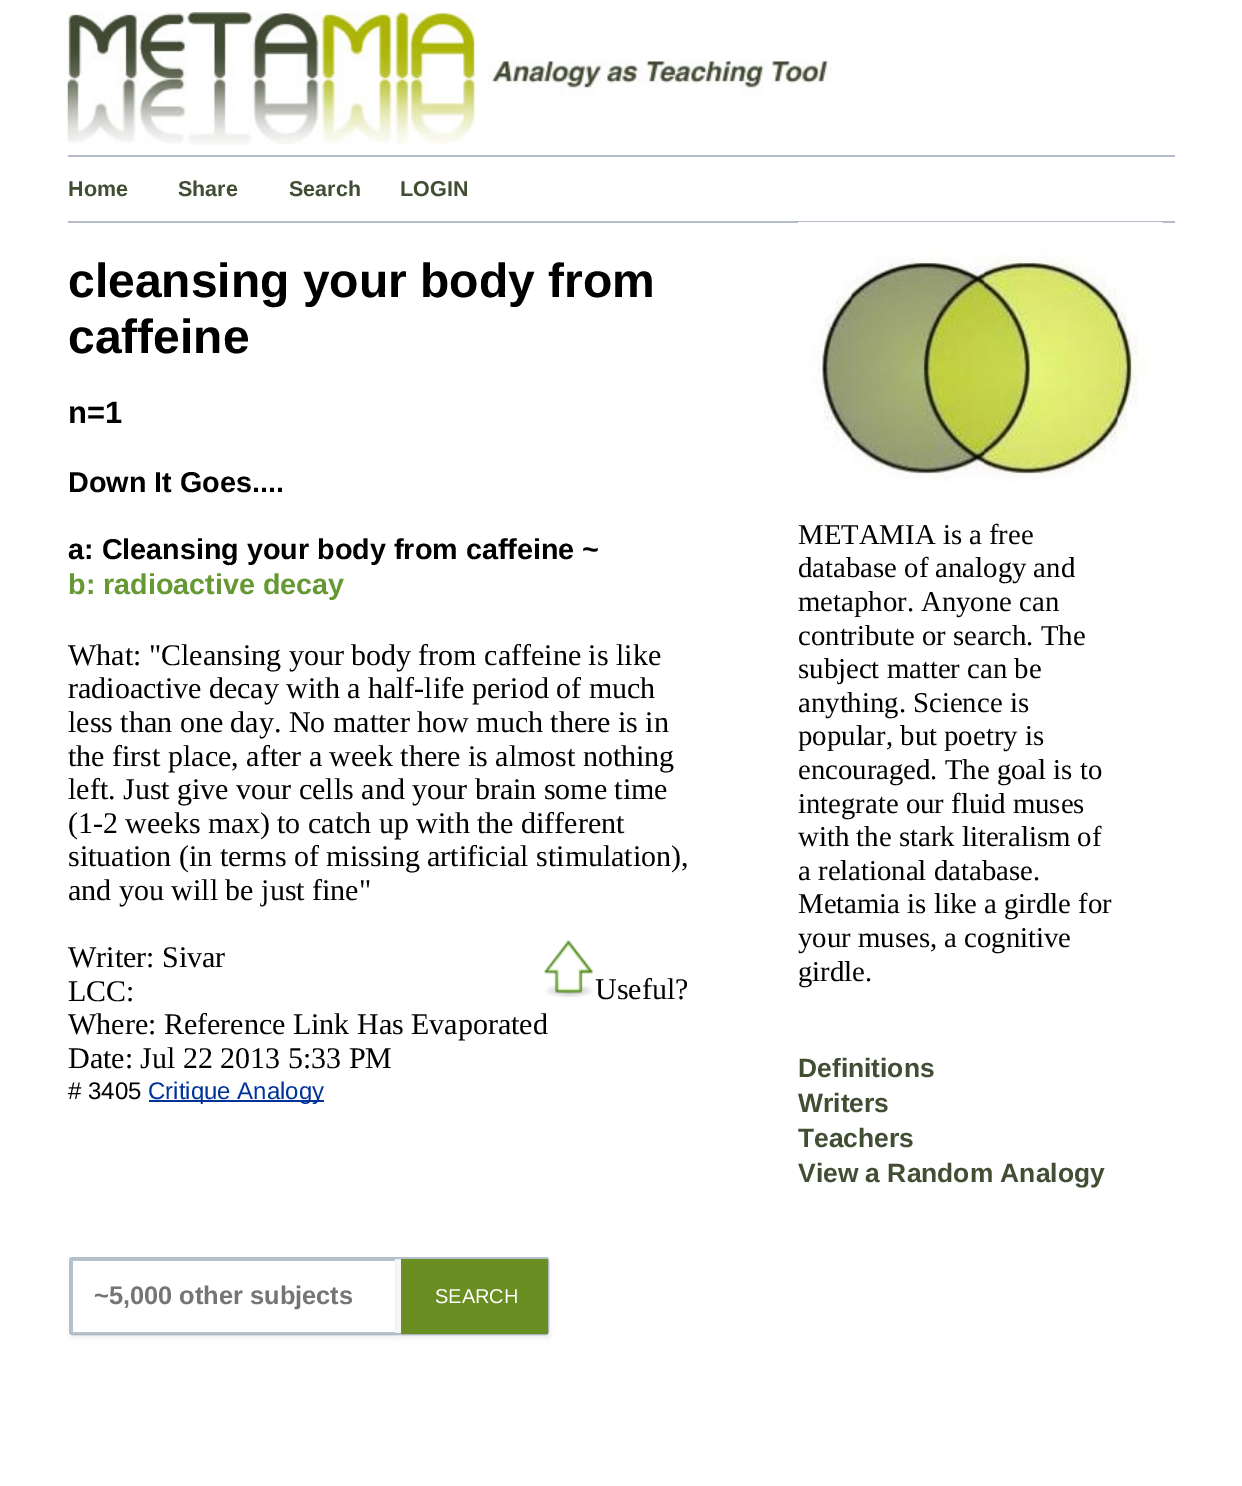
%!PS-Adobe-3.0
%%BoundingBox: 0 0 1242 1486
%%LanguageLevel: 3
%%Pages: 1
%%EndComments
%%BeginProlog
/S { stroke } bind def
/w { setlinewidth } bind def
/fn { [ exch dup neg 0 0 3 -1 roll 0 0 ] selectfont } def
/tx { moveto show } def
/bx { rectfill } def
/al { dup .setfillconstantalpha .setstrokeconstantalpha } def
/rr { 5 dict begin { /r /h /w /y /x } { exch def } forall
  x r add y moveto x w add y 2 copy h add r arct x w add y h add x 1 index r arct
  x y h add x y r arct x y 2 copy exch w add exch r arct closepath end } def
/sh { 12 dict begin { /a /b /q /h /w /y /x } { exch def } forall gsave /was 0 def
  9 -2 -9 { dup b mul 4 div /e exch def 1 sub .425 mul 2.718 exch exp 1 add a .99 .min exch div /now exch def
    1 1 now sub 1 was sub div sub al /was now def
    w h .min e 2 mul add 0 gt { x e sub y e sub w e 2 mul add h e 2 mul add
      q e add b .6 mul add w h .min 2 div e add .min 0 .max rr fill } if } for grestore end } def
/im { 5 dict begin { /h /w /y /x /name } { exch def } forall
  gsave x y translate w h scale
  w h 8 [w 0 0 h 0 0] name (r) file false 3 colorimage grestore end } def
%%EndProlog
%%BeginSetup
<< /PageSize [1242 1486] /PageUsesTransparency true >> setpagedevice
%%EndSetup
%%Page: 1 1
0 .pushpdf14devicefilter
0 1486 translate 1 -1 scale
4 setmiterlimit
1 setgray
0 0 1242 1486 bx
(image0.raw) 67 12 766 133 im
0.71 0.733 0.784 setrgbcolor
68 155 1107 2 bx
68 221 1107 2 bx
/LiberationSans-Bold 21.5 fn
0.255 0.306 0.204 setrgbcolor
(Home) 68 196 tx
(Share) 178 196 tx
(Search) 289 196 tx
(LOGIN) 400 196 tx
/LiberationSans-Bold 48 fn
0 setgray
(cleansing your body from) 68 297 tx
(caffeine) 68 353 tx
/LiberationSans-Bold 31 fn
(n=1) 68 423 tx
/LiberationSans-Bold 28.75 fn
(Down It Goes....) 68 492 tx
(a: Cleansing your body from caffeine ~) 68 559 tx
0.4 0.6 0.2 setrgbcolor
(b: radioactive decay) 68 594 tx
/LiberationSerif-Regular 30 fn
0 setgray
(What: "Cleansing your body from caffeine is like) 68 665 tx
(radioactive decay with a half-life period of much) 68 698 tx
(less than one day. No matter how much there is in) 68 732 tx
(the first place, after a week there is almost nothing) 68 766 tx
(left. Just give vour cells and your brain some time) 68 799 tx
(\(1-2 weeks max\) to catch up with the different) 68 833 tx
(situation \(in terms of missing artificial stimulation\),) 68 866 tx
(and you will be just fine") 68 900 tx
(Writer: Sivar) 68 967 tx
(LCC:) 68 1001 tx
(image1.raw) 544 940 50 58 im
(Useful?) 595 999 tx
(Where: Reference Link Has Evaporated) 68 1034 tx
(Date: Jul 22 2013 5:33 PM) 68 1068 tx
/LiberationSans-Regular 24 fn
(# 3405) 68 1099 tx
0 0.2 0.6 setrgbcolor
149 1100 175 2 bx
(Critique Analogy) 148 1099 tx
0.714 0.765 0.804 setrgbcolor
2 w
70 1258 478 76 2 rr S
0 setgray
402 1262 147 75 0 3 0.08 sh
0.42 0.557 0.137 setrgbcolor
401 1259 147 75 bx
0 setgray
72 1262 324 75 0 3 0.08 sh
1 setgray
73 1261 322 71 bx
0.714 0.765 0.804 setrgbcolor
71 1259 324 2 bx
71 1332 324 2 bx
71 1259 2 75 bx
/LiberationSans-Bold 25.4 fn
0.459 setgray
(~5,000 other subjects) 94 1304 tx
/LiberationSans-Regular 20 fn
1 setgray
(SEARCH) 435 1303 tx
(image2.raw) 798 222 365 263 im
/LiberationSerif-Regular 28.75 fn
0 setgray
(METAMIA is a free) 798 544 tx
(database of analogy and) 798 577 tx
(metaphor. Anyone can) 798 611 tx
(contribute or search. The) 798 645 tx
(subject matter can be) 798 678 tx
(anything. Science is) 798 712 tx
(popular, but poetry is) 798 745 tx
(encouraged. The goal is to) 798 779 tx
(integrate our fluid muses) 798 813 tx
(with the stark literalism of) 798 846 tx
(a relational database.) 798 880 tx
(Metamia is like a girdle for) 798 913 tx
(your muses, a cognitive) 798 947 tx
(girdle.) 798 981 tx
/LiberationSans-Bold 26.4 fn
0.255 0.306 0.204 setrgbcolor
(Definitions) 798 1077 tx
(Writers) 798 1112 tx
(Teachers) 798 1147 tx
(View a Random Analogy) 798 1182 tx
.poppdf14devicefilter showpage
%%EOF
